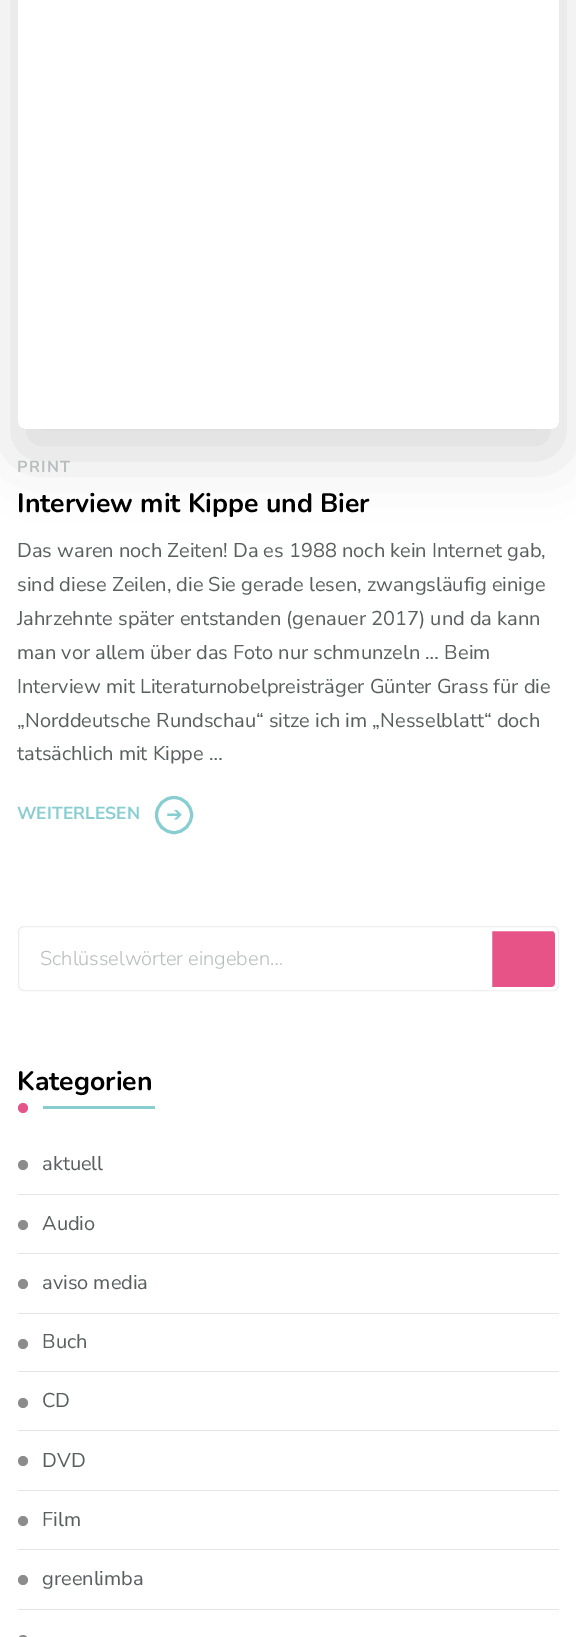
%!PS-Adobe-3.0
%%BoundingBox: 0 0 576 1637
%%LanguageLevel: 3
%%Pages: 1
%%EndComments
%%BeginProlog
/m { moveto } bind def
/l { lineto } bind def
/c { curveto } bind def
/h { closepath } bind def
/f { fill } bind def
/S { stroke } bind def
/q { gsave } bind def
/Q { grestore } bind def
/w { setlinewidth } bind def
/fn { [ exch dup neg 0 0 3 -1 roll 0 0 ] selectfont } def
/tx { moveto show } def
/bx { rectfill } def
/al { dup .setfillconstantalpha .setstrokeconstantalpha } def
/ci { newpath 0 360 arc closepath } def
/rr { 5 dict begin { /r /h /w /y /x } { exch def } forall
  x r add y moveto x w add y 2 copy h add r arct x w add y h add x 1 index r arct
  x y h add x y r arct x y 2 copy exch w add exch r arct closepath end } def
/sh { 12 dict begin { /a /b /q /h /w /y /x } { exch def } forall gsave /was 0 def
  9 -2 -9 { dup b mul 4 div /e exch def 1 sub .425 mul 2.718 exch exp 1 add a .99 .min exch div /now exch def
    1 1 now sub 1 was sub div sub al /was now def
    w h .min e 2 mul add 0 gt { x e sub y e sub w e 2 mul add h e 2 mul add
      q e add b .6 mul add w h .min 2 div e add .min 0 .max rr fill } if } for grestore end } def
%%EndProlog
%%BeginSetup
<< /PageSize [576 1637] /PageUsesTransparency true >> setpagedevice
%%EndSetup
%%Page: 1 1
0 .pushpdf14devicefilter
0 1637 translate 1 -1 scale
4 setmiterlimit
1 setgray
0 0 576 1637 bx
q
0 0 m 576 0 l 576 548 l 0 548 l h 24 -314 m 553 -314 l 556.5 -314 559 -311.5 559 -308 c 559 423 l 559 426.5 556.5 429 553 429 c 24 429 l 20.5 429 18 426.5 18 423 c 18 -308 l 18 -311.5 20.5 -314 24 -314 c h eoclip newpath
0 setgray
18 -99 541 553 6 31 0.15 sh
Q
/Nunito-Bold 16 fn
0.725 0.741 0.741 setrgbcolor
17 472 m 1.25 0 (PRINT) ashow
/Nunito-Bold 26.6 fn
0 setgray
(Interview mit Kippe und Bier) 17 512 tx
/NunitoSans-Regular 20 fn
0.349 0.373 0.373 setrgbcolor
(Das waren noch Zeiten! Da es 1988 noch kein Internet gab,) 17 557 tx
(sind diese Zeilen, die Sie gerade lesen, zwangsläufig einige) 17 591 tx
(Jahrzehnte später entstanden \(genauer 2017\) und da kann) 17 625 tx
(man vor allem über das Foto nur schmunzeln … Beim) 17 659 tx
(Interview mit Literaturnobelpreisträger Günter Grass für die) 17 693 tx
(„Norddeutsche Rundschau“ sitze ich im „Nesselblatt“ doch) 17 727 tx
(tatsächlich mit Kippe …) 17 760 tx
/NunitoSans-Bold 17.5 fn
0.533 0.808 0.816 setrgbcolor
(WEITERLESEN) 17 819 tx
3 w
174 815 17.5 ci S
/DejaVuSans-Regular 20 fn
(➔) 166 821 tx
0.929 setgray
1 w
18.5 926.5 540 64 5.5 rr S
/NunitoSans-Light 20 fn
0.725 0.741 0.741 setrgbcolor
(Schlüsselwörter eingeben…) 40 965 tx
0.906 0.325 0.529 setrgbcolor
490.5 929.5 m 552 929.5 l 554.5 929.5 556.5 931.5 556.5 934 c 556.5 984 l 556.5 986.5 554.5 988.5 552 988.5 c 490.5 988.5 l h q f Q
1 setgray
3 w
S
/Nunito-Bold 26.6 fn
0 setgray
(Kategorien) 17 1090 tx
0.906 0.325 0.529 setrgbcolor
23 1108 5 ci f
0.533 0.808 0.816 setrgbcolor
43 1106 112 3 bx
0.898 setgray
18 1194 541 1 bx
0.549 setgray
23 1165 5 ci f
/NunitoSans-Regular 20 fn
0.349 0.373 0.373 setrgbcolor
(aktuell) 42 1170 tx
0.898 setgray
18 1253 541 1 bx
0.549 setgray
23 1225 5 ci f
0.349 0.373 0.373 setrgbcolor
(Audio) 42 1230 tx
0.898 setgray
18 1313 541 1 bx
0.549 setgray
23 1284 5 ci f
0.349 0.373 0.373 setrgbcolor
(aviso media) 42 1289 tx
0.898 setgray
18 1371 541 1 bx
0.549 setgray
23 1344 5 ci f
0.349 0.373 0.373 setrgbcolor
(Buch) 42 1348 tx
0.898 setgray
18 1430 541 1 bx
0.549 setgray
23 1403 5 ci f
0.349 0.373 0.373 setrgbcolor
(CD) 42 1407 tx
0.898 setgray
18 1490 541 1 bx
0.549 setgray
23 1461 5 ci f
0.349 0.373 0.373 setrgbcolor
(DVD) 42 1467 tx
0.898 setgray
18 1549 541 1 bx
0.549 setgray
23 1521 5 ci f
0.349 0.373 0.373 setrgbcolor
(Film) 42 1526 tx
0.898 setgray
18 1609 541 1 bx
0.549 setgray
23 1580 5 ci f
0.349 0.373 0.373 setrgbcolor
(greenlimba) 42 1585 tx
0.549 setgray
18 1635 10 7 5 rr f
.poppdf14devicefilter showpage
%%EOF
